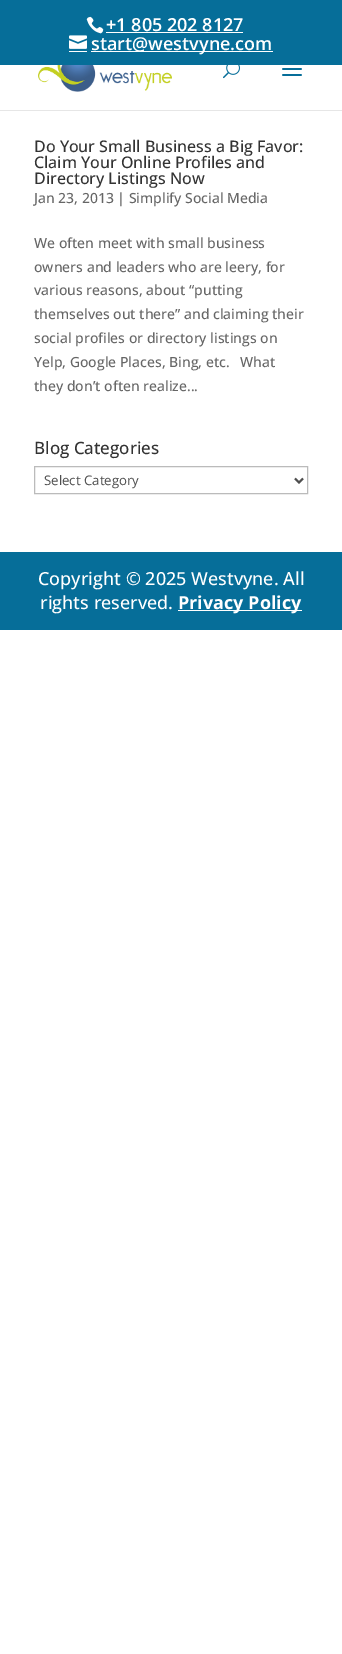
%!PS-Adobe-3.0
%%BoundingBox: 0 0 342 1654
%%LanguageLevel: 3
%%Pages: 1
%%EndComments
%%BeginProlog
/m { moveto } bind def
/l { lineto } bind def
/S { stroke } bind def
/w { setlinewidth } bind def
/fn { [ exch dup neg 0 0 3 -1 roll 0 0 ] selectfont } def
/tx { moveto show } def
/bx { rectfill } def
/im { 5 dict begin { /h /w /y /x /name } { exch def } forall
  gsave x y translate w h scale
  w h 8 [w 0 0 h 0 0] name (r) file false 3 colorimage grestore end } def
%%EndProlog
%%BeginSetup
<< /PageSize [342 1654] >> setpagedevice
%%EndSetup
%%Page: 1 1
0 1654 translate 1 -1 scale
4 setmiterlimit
1 setgray
0 0 342 1654 bx
0.024 0.431 0.6 setrgbcolor
0 0 342 65 bx
(image0.raw) 86 16 18 18 im
/OpenSans-SemiBold 18 fn
1 setgray
(+1 805 202 8127) 106 31 tx
106 32 137 1 bx
(image1.raw) 69 35 18 14 im
91 51 182 1 bx
(start@westvyne.com) 91 50 tx
69 51 18 1 bx
0.902 setgray
0 110 342 1 bx
(image2.raw) 38 65 134 27 im
(image3.raw) 223 65 17 14 im
(image4.raw) 282 68 20 8 im
/OpenSans-Medium 16 fn
0.2 setgray
(Do Your Small Business a Big Favor:) 34 152 tx
(Claim Your Online Profiles and) 34 168 tx
(Directory Listings Now) 34 184 tx
/OpenSans-Medium 14 fn
0.4 setgray
(Jan 23, 2013 | Simplify Social Media) 34 203 tx
(We often meet with small business) 34 248 tx
(owners and leaders who are leery, for) 34 272 tx
(various reasons, about “putting) 34 295 tx
(themselves out there” and claiming their) 34 319 tx
(social profiles or directory listings on) 34 343 tx
(Yelp, Google Places, Bing, etc.   What) 34 367 tx
(they don’t often realize...) 34 391 tx
/OpenSans-Medium 17 fn
0.2 setgray
(Blog Categories) 34 454 tx
0.733 setgray
34.5 466.5 273 27 rectstroke
0.306 setgray
2 w
295 478.5 m 299 482.5 l 303 478.5 l S
/OpenSans-Regular 13.25 fn
(Select Category) 44 485 tx
0.024 0.431 0.6 setrgbcolor
0 552 342 78 bx
/OpenSans-Medium 18 fn
1 setgray
(Copyright © 2025 Westvyne. All) 38 585 tx
(rights reserved.) 40 609 tx
178 610 124 1 bx
/OpenSans-Bold 18 fn
(Privacy Policy) 178 609 tx
showpage
%%EOF
